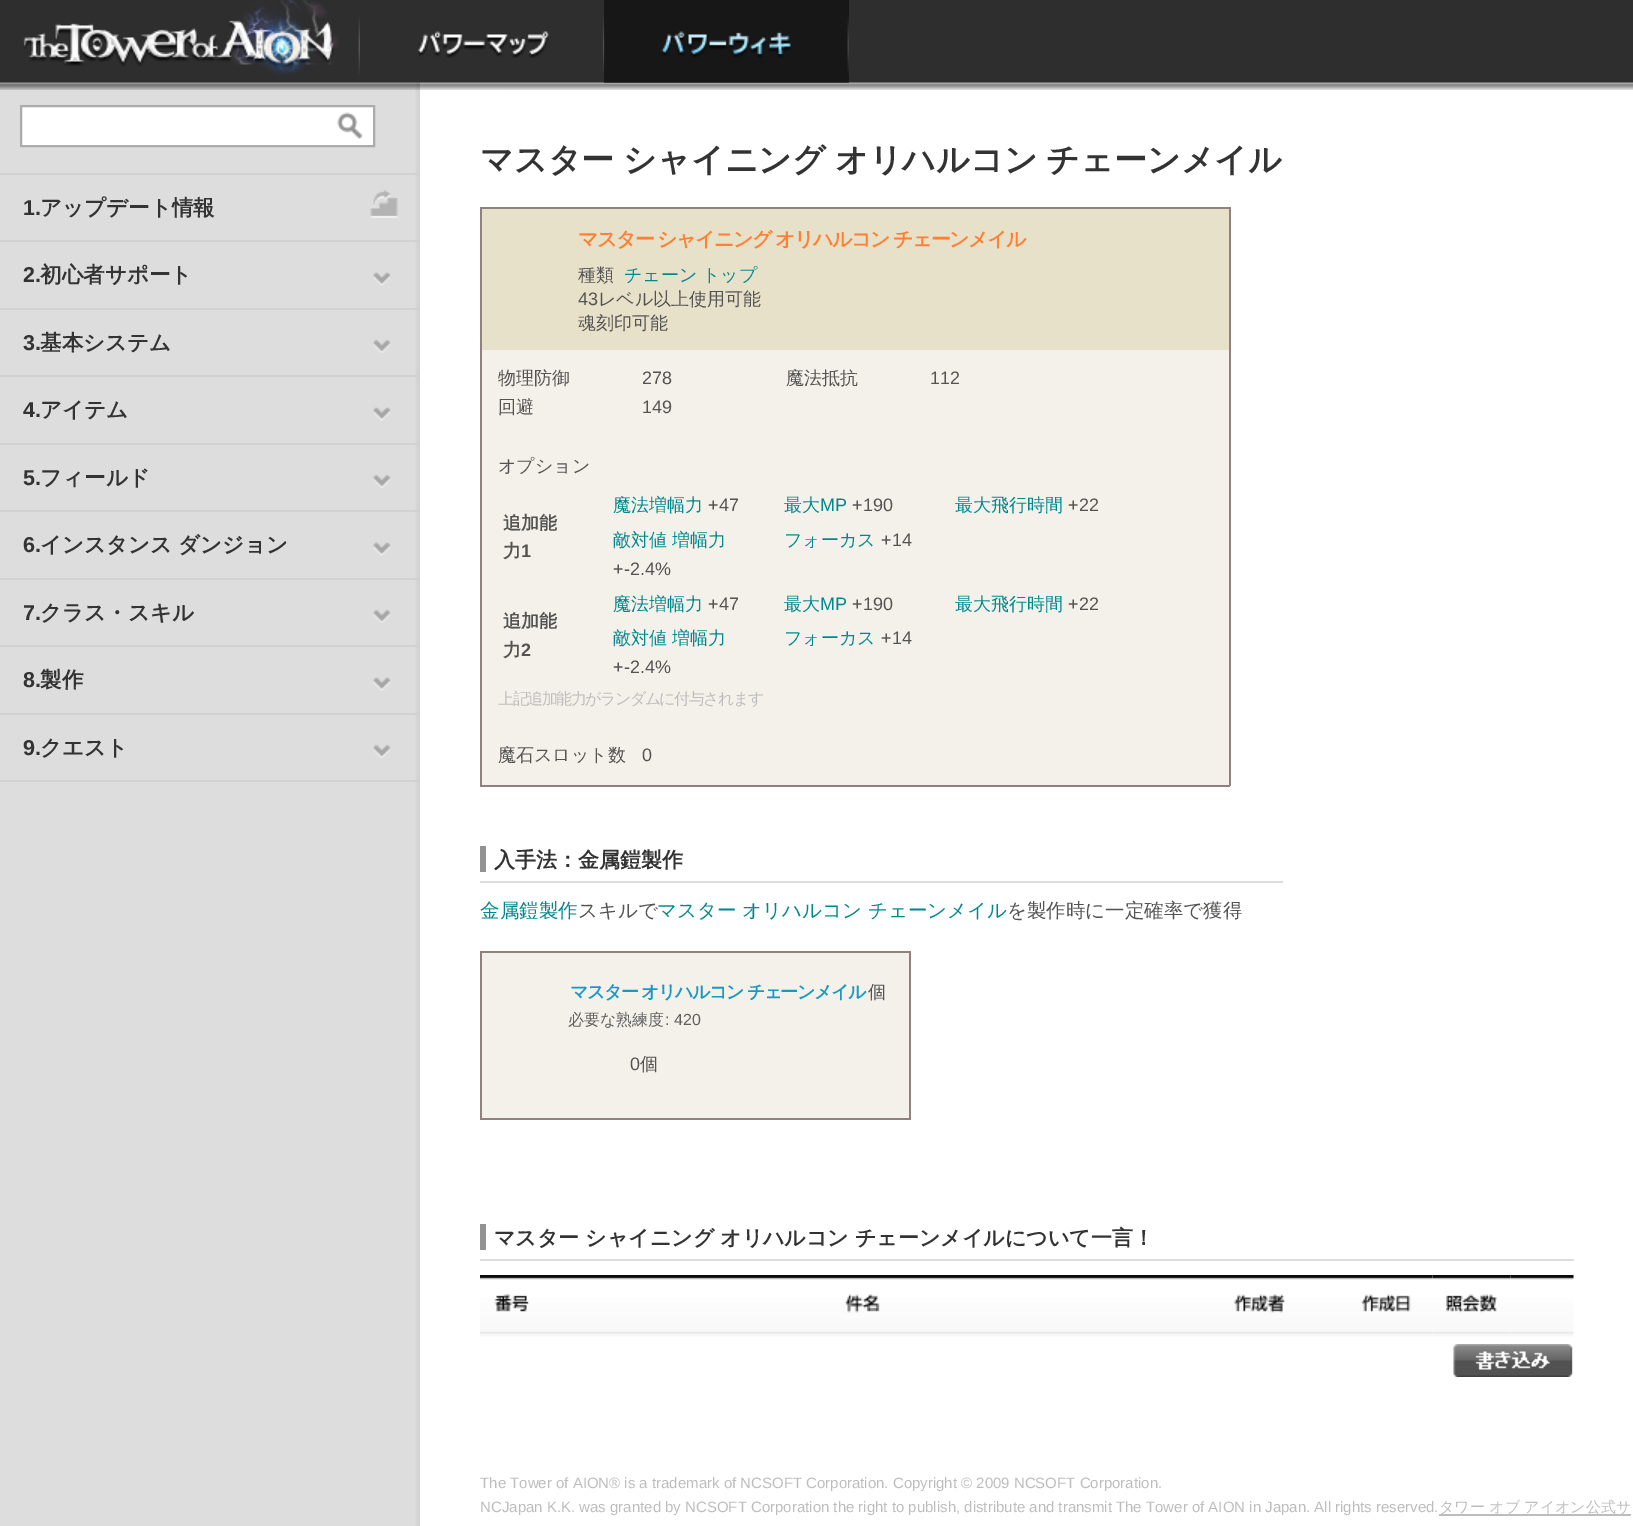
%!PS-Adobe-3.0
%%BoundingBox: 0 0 1633 1526
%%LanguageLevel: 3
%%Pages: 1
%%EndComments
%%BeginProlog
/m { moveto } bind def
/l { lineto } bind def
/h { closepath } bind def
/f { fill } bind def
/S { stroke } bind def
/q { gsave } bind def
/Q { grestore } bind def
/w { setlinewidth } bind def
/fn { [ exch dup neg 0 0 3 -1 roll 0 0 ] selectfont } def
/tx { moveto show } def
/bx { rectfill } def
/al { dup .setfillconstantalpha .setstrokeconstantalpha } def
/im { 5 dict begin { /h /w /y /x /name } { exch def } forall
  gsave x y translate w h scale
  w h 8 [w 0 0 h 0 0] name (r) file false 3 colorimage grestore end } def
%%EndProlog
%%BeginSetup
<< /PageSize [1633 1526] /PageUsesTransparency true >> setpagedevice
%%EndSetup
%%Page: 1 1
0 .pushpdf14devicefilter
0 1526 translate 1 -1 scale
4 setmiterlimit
1 setgray
0 0 1633 1526 bx
(image7.raw) 0 82 420 1444 im
(image0.raw) 0 0 1633 90 im
(image1.raw) 358 17 2 57 im
(image2.raw) 23 0 316 78 im
(image3.raw) 602 18 3 55 im
(image4.raw) 418 31 132 27 im
0.5 al
0 setgray
604 0 245 83 bx
1 al
(image5.raw) 847 17 2 57 im
(image6.raw) 661 31 130 27 im
0.82 setgray
0 173 420 2 bx
1 setgray
21 106 m 374 106 l 374 146 l 21 146 l h q f Q
0.671 setgray
2 w
S
(image8.raw) 337 112 26 28 im
0.82 setgray
0 240 420 2 bx
(image9.raw) 370 189 28 29 im
/LiberationSans-Bold 21.5 fn
0.2 setgray
(1.) 23 215 tx
/WenQuanYiZenHei-Bold 21.5 fn
(アップデート情報) 40 215 tx
0.82 setgray
0 308 420 2 bx
(image10.raw) 373 272 18 14 im
/LiberationSans-Bold 21.5 fn
0.2 setgray
(2.) 23 282 tx
/WenQuanYiZenHei-Bold 21.5 fn
(初心者サポート) 40 282 tx
0.82 setgray
0 375 420 2 bx
(image11.raw) 373 339 18 14 im
/LiberationSans-Bold 21.5 fn
0.2 setgray
(3.) 23 350 tx
/WenQuanYiZenHei-Bold 21.5 fn
(基本システム) 40 350 tx
0.82 setgray
0 443 420 2 bx
(image10.raw) 373 407 18 14 im
/LiberationSans-Bold 21.5 fn
0.2 setgray
(4.) 23 417 tx
/WenQuanYiZenHei-Bold 21.5 fn
(アイテム) 40 417 tx
0.82 setgray
0 510 420 2 bx
(image11.raw) 373 474 18 14 im
/LiberationSans-Bold 21.5 fn
0.2 setgray
(5.) 23 485 tx
/WenQuanYiZenHei-Bold 21.5 fn
(フィールド) 40 485 tx
0.82 setgray
0 578 420 2 bx
(image10.raw) 373 542 18 14 im
/LiberationSans-Bold 21.5 fn
0.2 setgray
(6.) 23 552 tx
/WenQuanYiZenHei-Bold 21.5 fn
(インスタンス ダンジョン) 40 552 tx
0.82 setgray
0 645 420 2 bx
(image11.raw) 373 609 18 14 im
/LiberationSans-Bold 21.5 fn
0.2 setgray
(7.) 23 620 tx
/WenQuanYiZenHei-Bold 21.5 fn
(クラス・スキル) 40 620 tx
0.82 setgray
0 713 420 2 bx
(image10.raw) 373 677 18 14 im
/LiberationSans-Bold 21.5 fn
0.2 setgray
(8.) 23 687 tx
/WenQuanYiZenHei-Bold 21.5 fn
(製作) 40 687 tx
0.82 setgray
0 780 420 2 bx
(image11.raw) 373 744 18 14 im
/LiberationSans-Bold 21.5 fn
0.2 setgray
(9.) 23 755 tx
/WenQuanYiZenHei-Bold 21.5 fn
(クエスト) 40 755 tx
/WenQuanYiZenHei-Bold 33 fn
480 171 m -1 0 32 (マスター シャイニング オリハルコン チェーンメイル) widthshow
0.957 0.945 0.922 setrgbcolor
482 350 747 435 bx
0.565 0.502 0.502 setrgbcolor
480 207 750 2 bx
1229 207 2 579 bx
480 785 750 2 bx
480 207 2 579 bx
0.91 0.882 0.792 setrgbcolor
482 209 747 141 bx
/WenQuanYiZenHei-Bold 20 fn
1 0.502 0.2 setrgbcolor
578 246 m -0.5 0 32 -1.5 0 (マスター シャイニング オリハルコン チェーンメイル) awidthshow
/WenQuanYiZenHei-Medium 18 fn
0.325 0.325 0.322 setrgbcolor
(種類) 578 281 tx
0.004 0.533 0.557 setrgbcolor
(チェーン) 624 281 tx
(トップ) 702 281 tx
/LiberationSans-Regular 18 fn
0.325 0.325 0.322 setrgbcolor
(43) 578 305 tx
/WenQuanYiZenHei-Medium 18 fn
(レベル以上使用可能) 598 305 tx
(魂刻印可能) 578 329 tx
(物理防御) 498 384 tx
/LiberationSans-Regular 18 fn
(278) 642 384 tx
/WenQuanYiZenHei-Medium 18 fn
(魔法抵抗) 786 384 tx
/LiberationSans-Regular 18 fn
(112) 930 384 tx
/WenQuanYiZenHei-Medium 18 fn
(回避) 498 413 tx
/LiberationSans-Regular 18 fn
(149) 642 413 tx
/WenQuanYiZenHei-Medium 18 fn
(オプション) 498 472 tx
/WenQuanYiZenHei-Bold 18 fn
(追加能) 503 529 tx
(力) 503 557 tx
/LiberationSans-Bold 18 fn
(1) 521 557 tx
/WenQuanYiZenHei-Medium 18 fn
0.004 0.533 0.557 setrgbcolor
(魔法増幅力) 613 511 tx
/LiberationSans-Regular 18 fn
0.325 0.325 0.322 setrgbcolor
(+47) 708 511 tx
/WenQuanYiZenHei-Medium 18 fn
0.004 0.533 0.557 setrgbcolor
(最大) 784 511 tx
/LiberationSans-Regular 18 fn
(MP) 820 511 tx
0.325 0.325 0.322 setrgbcolor
(+190) 852 511 tx
/WenQuanYiZenHei-Medium 18 fn
0.004 0.533 0.557 setrgbcolor
(最大飛行時間) 955 511 tx
/LiberationSans-Regular 18 fn
0.325 0.325 0.322 setrgbcolor
(+22) 1068 511 tx
/WenQuanYiZenHei-Medium 18 fn
0.004 0.533 0.557 setrgbcolor
(敵対値 増幅力) 613 546 tx
/LiberationSans-Regular 18 fn
0.325 0.325 0.322 setrgbcolor
(+-2.4%) 613 575 tx
/WenQuanYiZenHei-Medium 18 fn
0.004 0.533 0.557 setrgbcolor
(フォーカス) 784 546 tx
/LiberationSans-Regular 18 fn
0.325 0.325 0.322 setrgbcolor
(+14) 881 546 tx
/WenQuanYiZenHei-Bold 18 fn
(追加能) 503 627 tx
(力) 503 656 tx
/LiberationSans-Bold 18 fn
(2) 521 656 tx
/WenQuanYiZenHei-Medium 18 fn
0.004 0.533 0.557 setrgbcolor
(魔法増幅力) 613 610 tx
/LiberationSans-Regular 18 fn
0.325 0.325 0.322 setrgbcolor
(+47) 708 610 tx
/WenQuanYiZenHei-Medium 18 fn
0.004 0.533 0.557 setrgbcolor
(最大) 784 610 tx
/LiberationSans-Regular 18 fn
(MP) 820 610 tx
0.325 0.325 0.322 setrgbcolor
(+190) 852 610 tx
/WenQuanYiZenHei-Medium 18 fn
0.004 0.533 0.557 setrgbcolor
(最大飛行時間) 955 610 tx
/LiberationSans-Regular 18 fn
0.325 0.325 0.322 setrgbcolor
(+22) 1068 610 tx
/WenQuanYiZenHei-Medium 18 fn
0.004 0.533 0.557 setrgbcolor
(敵対値 増幅力) 613 644 tx
/LiberationSans-Regular 18 fn
0.325 0.325 0.322 setrgbcolor
(+-2.4%) 613 673 tx
/WenQuanYiZenHei-Medium 18 fn
0.004 0.533 0.557 setrgbcolor
(フォーカス) 784 644 tx
/LiberationSans-Regular 18 fn
0.325 0.325 0.322 setrgbcolor
(+14) 881 644 tx
/WenQuanYiZenHei-Medium 16 fn
0.741 setgray
498 704 m -1.5 0 (上記追加能力がランダムに付与されます) ashow
/WenQuanYiZenHei-Medium 18 fn
0.325 0.325 0.322 setrgbcolor
(魔石スロット数) 498 761 tx
/LiberationSans-Regular 18 fn
(0) 642 761 tx
0.867 setgray
480 881 803 2 bx
0.573 setgray
480 846 6 26 bx
/WenQuanYiZenHei-Bold 21 fn
0.2 setgray
(入手法：金属鎧製作) 494 867 tx
/WenQuanYiZenHei-Medium 19.5 fn
0.004 0.533 0.557 setrgbcolor
(金属鎧製作) 480 917 tx
0.325 0.325 0.322 setrgbcolor
(スキルで) 578 917 tx
0.004 0.533 0.557 setrgbcolor
(マスター オリハルコン チェーンメイル) 657 917 tx
0.325 0.325 0.322 setrgbcolor
(を製作時に一定確率で獲得) 1007 917 tx
0.957 0.945 0.922 setrgbcolor
482 953 427 165 bx
0.565 0.502 0.502 setrgbcolor
480 951 431 2 bx
909 951 2 168 bx
480 1118 431 2 bx
480 951 2 168 bx
/WenQuanYiZenHei-Bold 18 fn
0.086 0.6 0.769 setrgbcolor
570 998 m -1.5 0 (マスター オリハルコン チェーンメイル) ashow
/WenQuanYiZenHei-Medium 18 fn
0.325 0.325 0.322 setrgbcolor
(個) 868 998 tx
/WenQuanYiZenHei-Medium 16 fn
0.376 setgray
(必要な熟練度) 568 1025 tx
/LiberationSans-Regular 16 fn
(: 420) 665 1025 tx
/LiberationSans-Regular 18 fn
0.325 0.325 0.322 setrgbcolor
(0) 630 1070 tx
/WenQuanYiZenHei-Medium 18 fn
(個) 640 1070 tx
0.867 setgray
480 1259 1094 2 bx
0.573 setgray
480 1224 6 26 bx
/WenQuanYiZenHei-Bold 21 fn
0.2 setgray
494 1245 m -0.5 0 32 (マスター シャイニング オリハルコン チェーンメイルについて一言！) widthshow
(image12.raw) 480 1275 63 62 im
(image13.raw) 494 1294 35 18 im
(image14.raw) 543 1275 639 62 im
(image15.raw) 845 1294 35 19 im
(image16.raw) 1182 1275 156 62 im
(image17.raw) 1234 1294 51 19 im
(image18.raw) 1338 1275 95 62 im
(image19.raw) 1361 1294 50 18 im
(image20.raw) 1432 1275 79 62 im
(image21.raw) 1446 1294 51 19 im
(image22.raw) 1510 1275 64 62 im
(image23.raw) 1453 1344 120 33 im
/LiberationSans-Regular 15 fn
0.741 setgray
(The Tower of AION® is a trademark of NCSOFT Corporation. Copyright © 2009 NCSOFT Corporation.) 480 1488 tx
(NCJapan K.K. was granted by NCSOFT Corporation the right to publish, distribute and transmit The Tower of AION in Japan. All rights reserved.) 480 1512 tx
1439 1514 192 2 bx
/WenQuanYiZenHei-Medium 15 fn
(タワー オブ アイオン公式サ) 1439 1512 tx
.poppdf14devicefilter showpage
%%EOF
